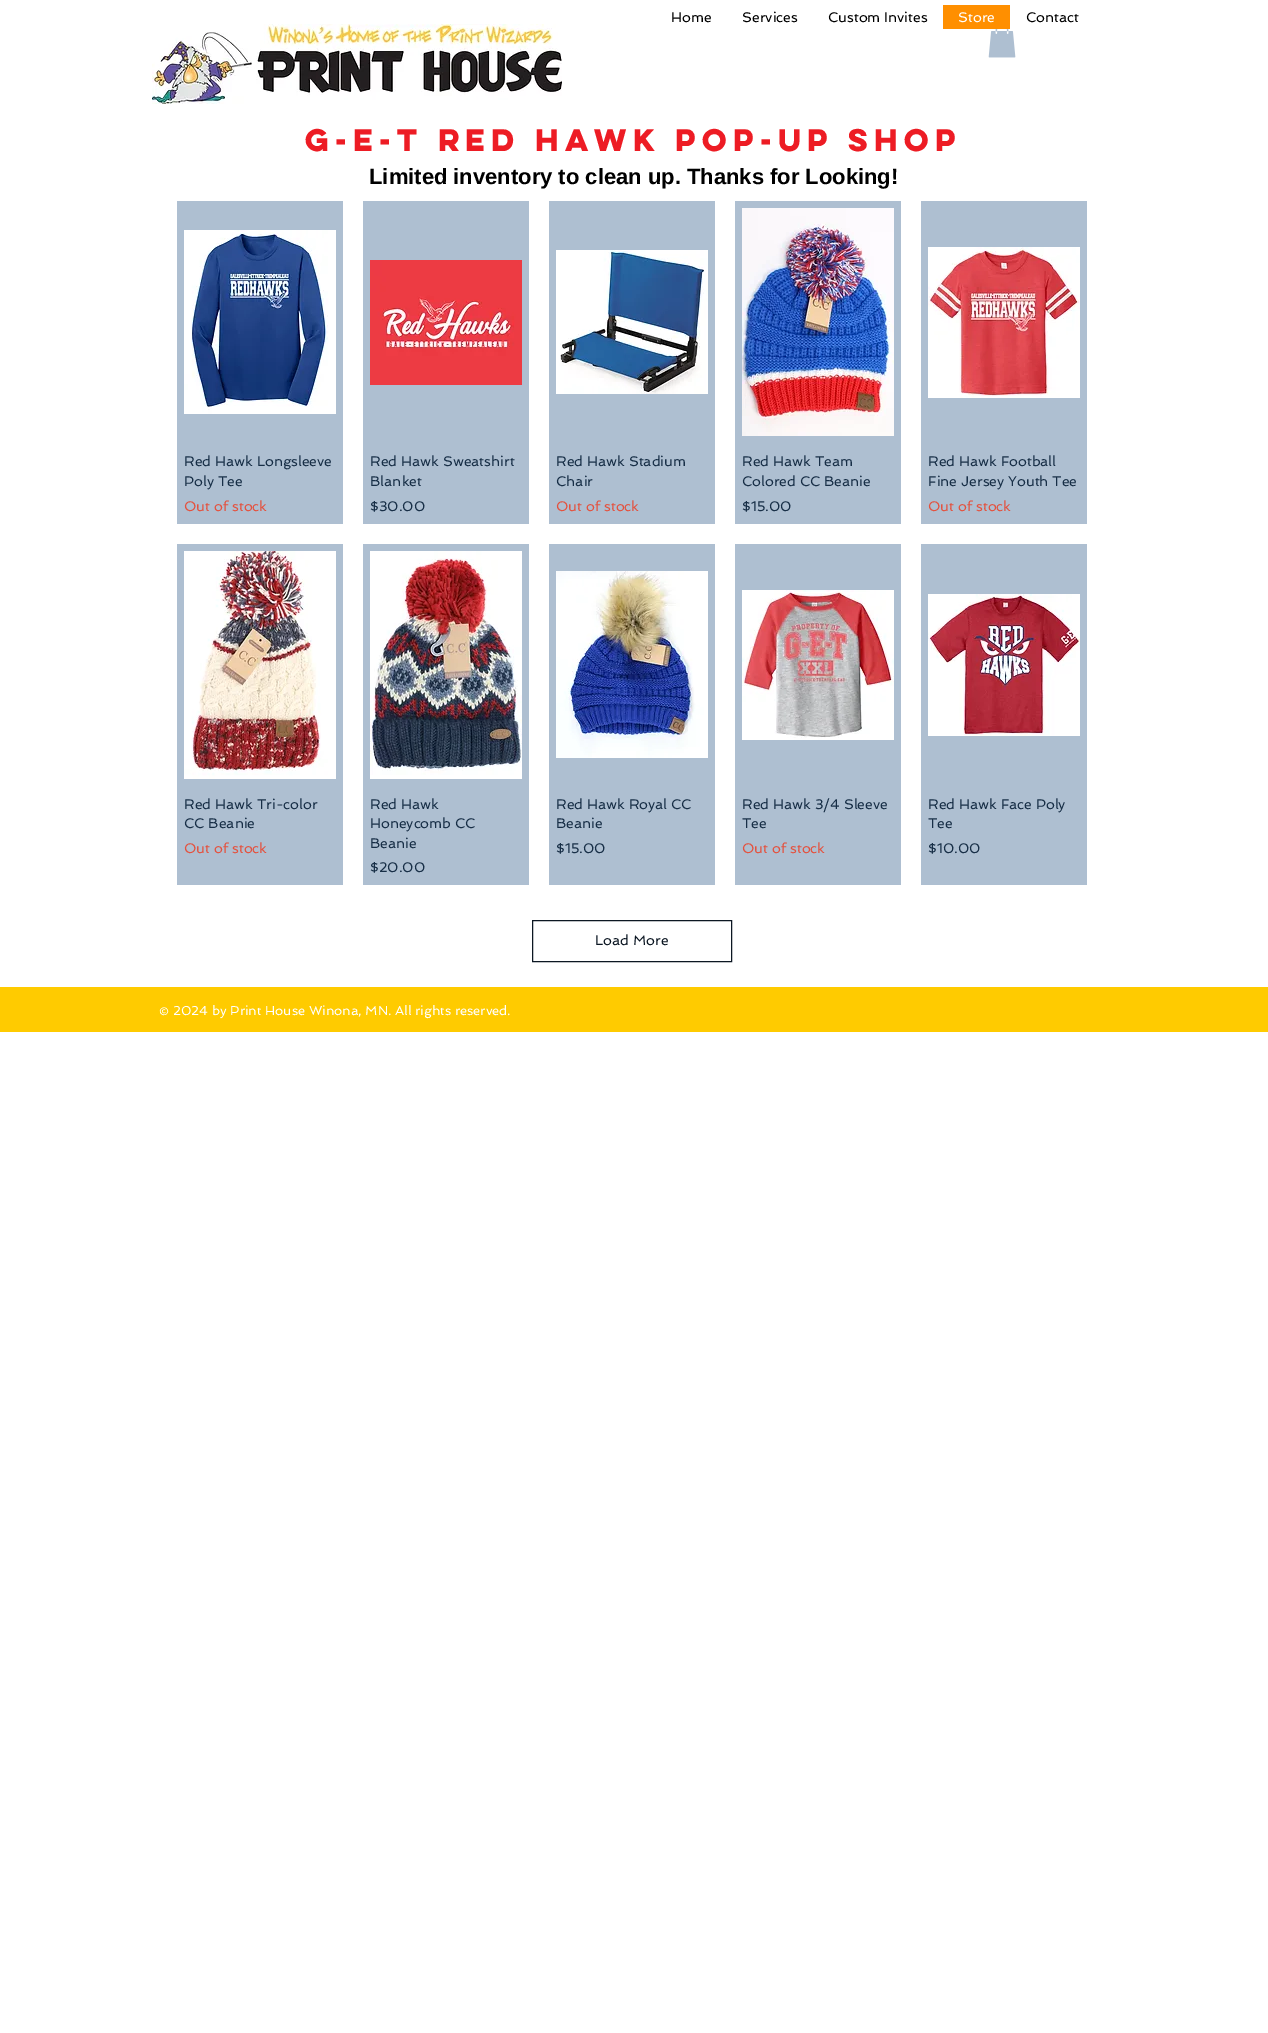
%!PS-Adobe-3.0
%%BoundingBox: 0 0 1268 2033
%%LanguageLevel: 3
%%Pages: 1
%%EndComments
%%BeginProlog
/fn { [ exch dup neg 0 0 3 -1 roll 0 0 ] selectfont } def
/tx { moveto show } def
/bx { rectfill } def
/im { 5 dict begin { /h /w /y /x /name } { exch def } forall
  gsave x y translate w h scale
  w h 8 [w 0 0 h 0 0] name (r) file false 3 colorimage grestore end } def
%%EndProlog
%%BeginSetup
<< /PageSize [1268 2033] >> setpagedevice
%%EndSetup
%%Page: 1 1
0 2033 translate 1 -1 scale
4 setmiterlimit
1 setgray
0 0 1268 2033 bx
/Spinnaker-Regular 14 fn
0 setgray
(Home) 671 22 tx
(Services) 742 22 tx
(Custom Invites) 828 22 tx
1 0.561 0 setrgbcolor
943 5 67 24 bx
1 setgray
(Store) 958 22 tx
0 setgray
(Contact) 1026 22 tx
(image0.raw) 152 24 410 80 im
(image1.raw) 988 29 28 29 im
/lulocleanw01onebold-Bold 28 fn
0.929 0.11 0.141 setrgbcolor
(G-E-T Red Hawk Pop-Up Shop) 305 151 tx
/LiberationSans-Bold 22 fn
0 setgray
(Limited inventory to clean up. Thanks for Looking!) 369 184 tx
0.682 0.749 0.82 setrgbcolor
177 201 166 323 bx
(image2.raw) 184 230 152 184 im
/Spinnaker-Regular 14 fn
0.094 0.184 0.278 setrgbcolor
(Red Hawk Longsleeve) 184 466 tx
(Poly Tee) 184 486 tx
0.894 0.322 0.247 setrgbcolor
(Out of stock) 184 511 tx
0.682 0.749 0.82 setrgbcolor
363 201 166 323 bx
(image3.raw) 370 260 152 125 im
0.094 0.184 0.278 setrgbcolor
(Red Hawk Sweatshirt) 370 466 tx
(Blanket) 370 486 tx
($30.00) 370 511 tx
0.682 0.749 0.82 setrgbcolor
549 201 166 323 bx
(image4.raw) 556 250 152 144 im
0.094 0.184 0.278 setrgbcolor
(Red Hawk Stadium) 556 466 tx
(Chair) 556 486 tx
0.894 0.322 0.247 setrgbcolor
(Out of stock) 556 511 tx
0.682 0.749 0.82 setrgbcolor
735 201 166 323 bx
(image5.raw) 742 208 152 228 im
0.094 0.184 0.278 setrgbcolor
(Red Hawk Team) 742 466 tx
(Colored CC Beanie) 742 486 tx
($15.00) 742 511 tx
0.682 0.749 0.82 setrgbcolor
921 201 166 323 bx
(image6.raw) 928 247 152 151 im
0.094 0.184 0.278 setrgbcolor
(Red Hawk Football) 928 466 tx
(Fine Jersey Youth Tee) 928 486 tx
0.894 0.322 0.247 setrgbcolor
(Out of stock) 928 511 tx
0.682 0.749 0.82 setrgbcolor
177 544 166 341 bx
(image7.raw) 184 551 152 228 im
0.094 0.184 0.278 setrgbcolor
(Red Hawk Tri-color) 184 809 tx
(CC Beanie) 184 828 tx
0.894 0.322 0.247 setrgbcolor
(Out of stock) 184 853 tx
0.682 0.749 0.82 setrgbcolor
363 544 166 341 bx
(image8.raw) 370 551 152 228 im
0.094 0.184 0.278 setrgbcolor
(Red Hawk) 370 809 tx
(Honeycomb CC) 370 828 tx
(Beanie) 370 848 tx
($20.00) 370 872 tx
0.682 0.749 0.82 setrgbcolor
549 544 166 341 bx
(image9.raw) 556 571 152 187 im
0.094 0.184 0.278 setrgbcolor
(Red Hawk Royal CC) 556 809 tx
(Beanie) 556 828 tx
($15.00) 556 853 tx
0.682 0.749 0.82 setrgbcolor
735 544 166 341 bx
(image10.raw) 742 590 152 150 im
0.094 0.184 0.278 setrgbcolor
(Red Hawk 3/4 Sleeve) 742 809 tx
(Tee) 742 828 tx
0.894 0.322 0.247 setrgbcolor
(Out of stock) 742 853 tx
0.682 0.749 0.82 setrgbcolor
921 544 166 341 bx
(image11.raw) 928 594 152 142 im
0.094 0.184 0.278 setrgbcolor
(Red Hawk Face Poly) 928 809 tx
(Tee) 928 828 tx
($10.00) 928 853 tx
0.047 0.09 0.137 setrgbcolor
532.5 920.5 199 41 rectstroke
(Load More) 595 945 tx
1 0.796 0 setrgbcolor
0 987 1268 45 bx
/Spinnaker-Regular 13 fn
1 setgray
(© 2024 by Print House Winona, MN. All rights reserved.) 159 1015 tx
showpage
%%EOF
